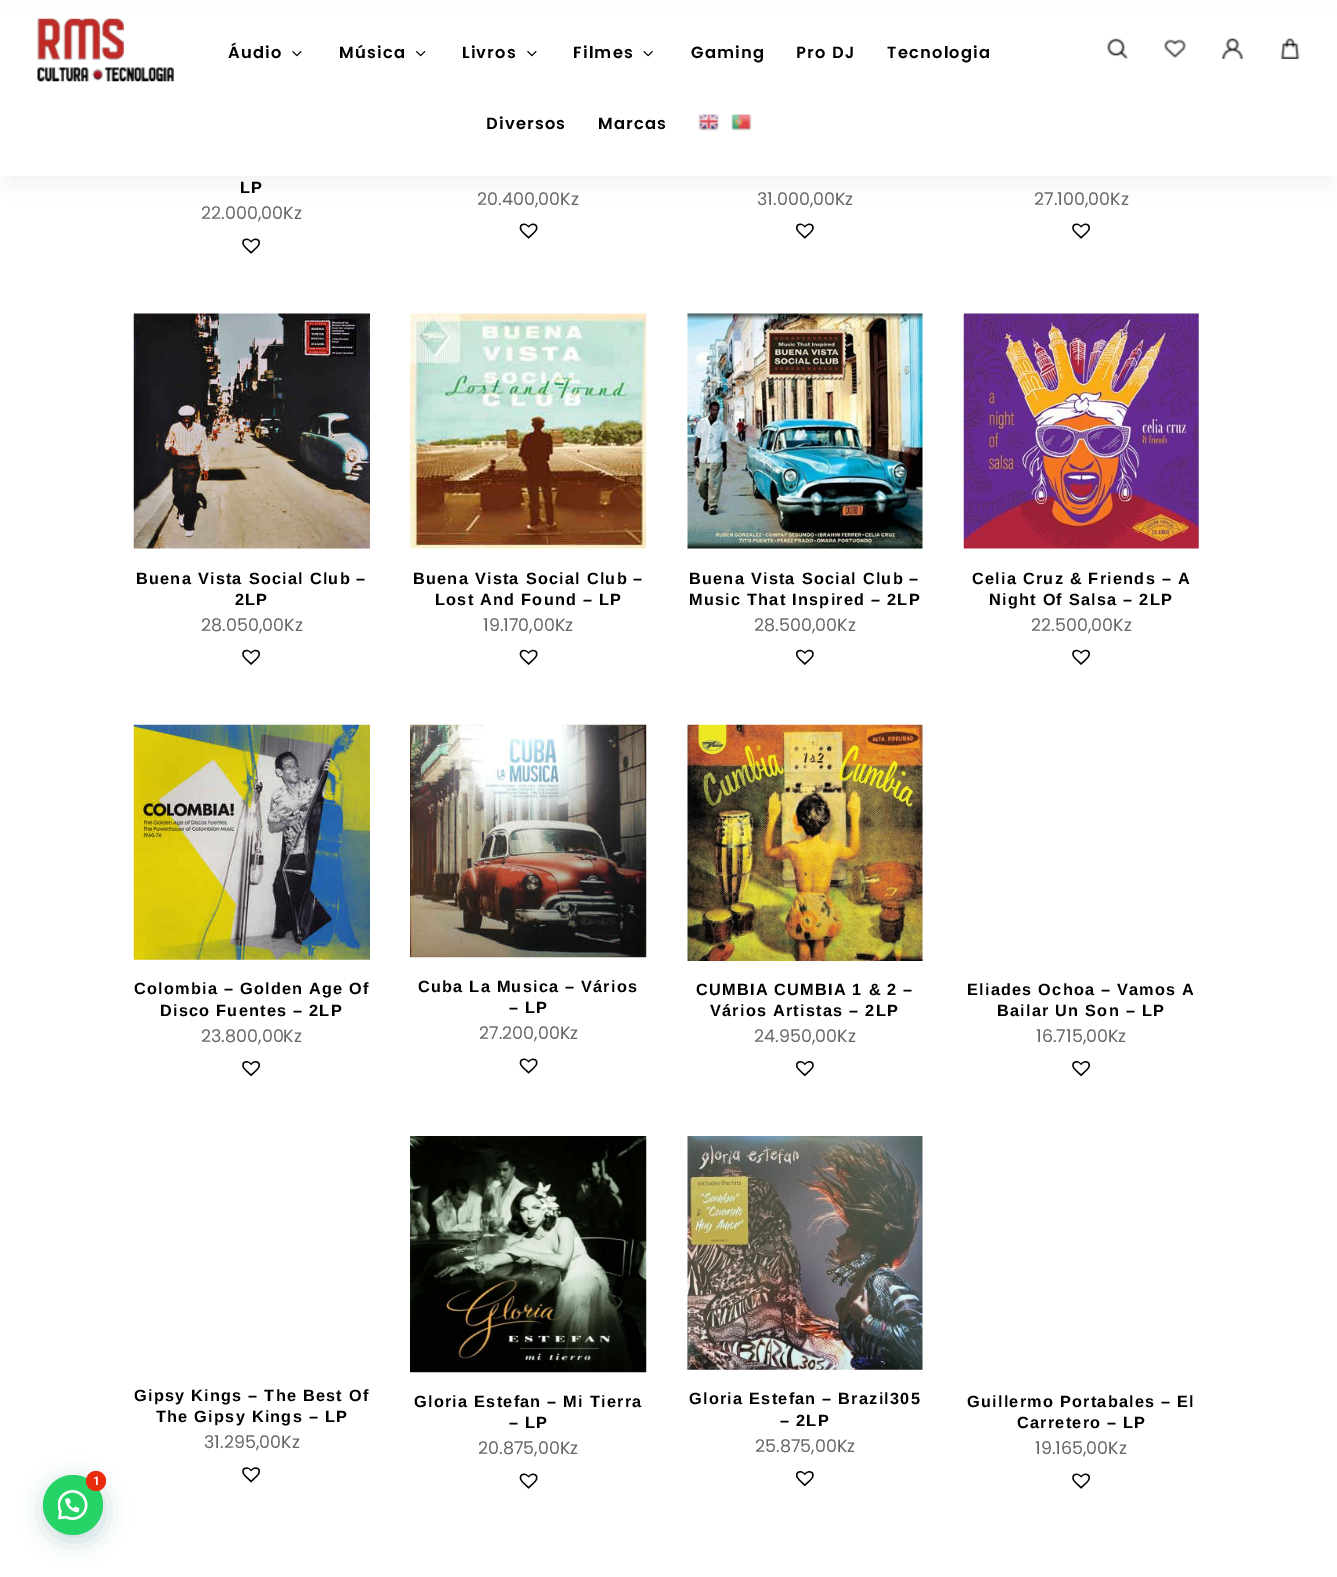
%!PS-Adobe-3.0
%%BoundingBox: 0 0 1337 1577
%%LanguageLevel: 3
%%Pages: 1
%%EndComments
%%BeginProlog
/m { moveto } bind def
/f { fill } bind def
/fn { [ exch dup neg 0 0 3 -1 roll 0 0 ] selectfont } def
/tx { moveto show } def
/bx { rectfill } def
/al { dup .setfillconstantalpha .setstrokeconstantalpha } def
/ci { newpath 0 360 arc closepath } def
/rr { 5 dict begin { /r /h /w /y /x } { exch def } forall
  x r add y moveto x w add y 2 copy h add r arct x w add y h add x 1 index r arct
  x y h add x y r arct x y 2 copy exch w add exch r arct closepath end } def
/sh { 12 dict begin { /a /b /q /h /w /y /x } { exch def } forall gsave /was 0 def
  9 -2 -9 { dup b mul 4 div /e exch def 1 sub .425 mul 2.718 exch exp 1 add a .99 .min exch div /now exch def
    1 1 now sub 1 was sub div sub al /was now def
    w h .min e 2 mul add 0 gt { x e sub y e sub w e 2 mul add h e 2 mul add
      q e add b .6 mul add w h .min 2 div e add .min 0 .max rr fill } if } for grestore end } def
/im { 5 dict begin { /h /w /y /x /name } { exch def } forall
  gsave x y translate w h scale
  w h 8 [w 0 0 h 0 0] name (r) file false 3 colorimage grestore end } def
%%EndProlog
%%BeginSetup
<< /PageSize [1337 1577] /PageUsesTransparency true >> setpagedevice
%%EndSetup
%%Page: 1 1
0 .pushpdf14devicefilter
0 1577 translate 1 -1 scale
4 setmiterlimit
1 setgray
0 0 1337 1577 bx
0 setgray
8 23 1322 161 0 11 0.05 sh
1 setgray
0 14 1337 162 bx
(image0.raw) 37 18 137 64 im
/Poppins-SemiBold 16.25 fn
0 setgray
228 58 m 1.25 0 (Áudio) ashow
(image1.raw) 292 51 10 6 im
339 58 m 1.25 0 (Música) ashow
(image2.raw) 416 51 10 6 im
462 58 m 1.25 0 (Livros) ashow
(image1.raw) 527 51 10 6 im
573 58 m 1.25 0 (Filmes) ashow
(image3.raw) 643 51 10 6 im
691 58 m 1.25 0 (Gaming) ashow
796 58 m 1.25 0 (Pro DJ) ashow
887 58 m 1.25 0 (Tecnologia) ashow
486 129 m 1.25 0 (Diversos) ashow
598 129 m 1.25 0 (Marcas) ashow
(image4.raw) 698 113 21 18 im
(image5.raw) 731 113 21 18 im
(image6.raw) 1107 38 21 21 im
(image7.raw) 1164 39 22 19 im
(image8.raw) 1222 38 21 21 im
(image9.raw) 1280 38 20 21 im
/LiberationSans-Bold 16.25 fn
240 193 m 1.25 0 (LP) ashow
/Poppins-Regular 17.5 fn
0.4 setgray
(22.000,00Kz) 201 219 tx
(image10.raw) 242 238 18 16 im
(20.400,00Kz) 477 205 tx
(image11.raw) 519 223 19 16 im
(31.000,00Kz) 757 205 tx
(image12.raw) 795 223 19 16 im
(27.100,00Kz) 1034 205 tx
(image10.raw) 1072 223 18 16 im
(image13.raw) 133 313 237 236 im
/LiberationSans-Bold 16.25 fn
0 setgray
136 584 m 1.25 0 (Buena Vista Social Club –) ashow
235 605 m 1.25 0 (2LP) ashow
/Poppins-Regular 17.5 fn
0.4 setgray
(28.050,00Kz) 201 631 tx
(image14.raw) 242 649 18 16 im
(image15.raw) 410 313 237 236 im
/LiberationSans-Bold 16.25 fn
0 setgray
413 584 m 1.25 0 (Buena Vista Social Club –) ashow
435 605 m 1.25 0 (Lost And Found – LP) ashow
/Poppins-Regular 17.5 fn
0.4 setgray
(19.170,00Kz) 483 631 tx
(image16.raw) 519 649 19 16 im
(image17.raw) 687 313 236 236 im
/LiberationSans-Bold 16.25 fn
0 setgray
689 584 m 1.25 0 (Buena Vista Social Club –) ashow
689 605 m 1.25 0 (Music That Inspired – 2LP) ashow
/Poppins-Regular 17.5 fn
0.4 setgray
(28.500,00Kz) 754 631 tx
(image18.raw) 796 649 18 16 im
(image19.raw) 963 313 236 236 im
/LiberationSans-Bold 16.25 fn
0 setgray
972 584 m 1.25 0 (Celia Cruz & Friends – A) ashow
989 605 m 1.25 0 (Night Of Salsa – 2LP) ashow
/Poppins-Regular 17.5 fn
0.4 setgray
(22.500,00Kz) 1031 631 tx
(image14.raw) 1072 649 18 16 im
(image20.raw) 133 724 237 236 im
/LiberationSans-Bold 16.25 fn
0 setgray
134 994 m 1.25 0 (Colombia – Golden Age Of) ashow
160 1016 m 1.25 0 (Disco Fuentes – 2LP) ashow
/Poppins-Regular 17.5 fn
0.4 setgray
(23.800,00Kz) 201 1042 tx
(image21.raw) 242 1061 18 16 im
(image22.raw) 410 724 237 234 im
/LiberationSans-Bold 16.25 fn
0 setgray
418 992 m 1.25 0 (Cuba La Musica – Vários) ashow
509 1013 m 1.25 0 (– LP) ashow
/Poppins-Regular 17.5 fn
0.4 setgray
(27.200,00Kz) 479 1039 tx
(image11.raw) 519 1058 19 16 im
(image23.raw) 687 724 236 237 im
/LiberationSans-Bold 16.25 fn
0 setgray
696 995 m 1.25 0 (CUMBIA CUMBIA 1 & 2 –) ashow
710 1016 m 1.25 0 (Vários Artistas – 2LP) ashow
/Poppins-Regular 17.5 fn
0.4 setgray
(24.950,00Kz) 754 1042 tx
(image24.raw) 795 1061 19 16 im
/LiberationSans-Bold 16.25 fn
0 setgray
967 995 m 1.25 0 (Eliades Ochoa – Vamos A) ashow
997 1016 m 1.25 0 (Bailar Un Son – LP) ashow
/Poppins-Regular 17.5 fn
0.4 setgray
(16.715,00Kz) 1036 1042 tx
(image21.raw) 1072 1061 18 16 im
/LiberationSans-Bold 16.25 fn
0 setgray
134 1401 m 1.25 0 (Gipsy Kings – The Best Of) ashow
156 1422 m 1.25 0 (The Gipsy Kings – LP) ashow
/Poppins-Regular 17.5 fn
0.4 setgray
(31.295,00Kz) 204 1448 tx
(image25.raw) 242 1467 18 16 im
(image26.raw) 410 1136 237 237 im
/LiberationSans-Bold 16.25 fn
0 setgray
414 1407 m 1.25 0 (Gloria Estefan – Mi Tierra) ashow
509 1428 m 1.25 0 (– LP) ashow
/Poppins-Regular 17.5 fn
0.4 setgray
(20.875,00Kz) 478 1454 tx
(image11.raw) 519 1473 19 16 im
(image27.raw) 687 1136 236 234 im
/LiberationSans-Bold 16.25 fn
0 setgray
689 1404 m 1.25 0 (Gloria Estefan – Brazil305) ashow
780 1426 m 1.25 0 (– 2LP) ashow
/Poppins-Regular 17.5 fn
0.4 setgray
(25.875,00Kz) 755 1452 tx
(image24.raw) 795 1471 19 16 im
/LiberationSans-Bold 16.25 fn
0 setgray
967 1407 m 1.25 0 (Guillermo Portabales – El) ashow
1017 1428 m 1.25 0 (Carretero – LP) ashow
/Poppins-Regular 17.5 fn
0.4 setgray
(19.165,00Kz) 1035 1454 tx
(image10.raw) 1072 1473 18 16 im
0.027 0.369 0.329 setrgbcolor
44 1481 60 60 30 12 0.24 sh
0.145 0.827 0.4 setrgbcolor
73 1505 30 ci f
(image28.raw) 58 1490 30 30 im
0.91 0.173 0.047 setrgbcolor
96 1481 10 ci f
/Roboto-Bold 12 fn
1 setgray
(1) 93 1485 tx
.poppdf14devicefilter showpage
%%EOF
